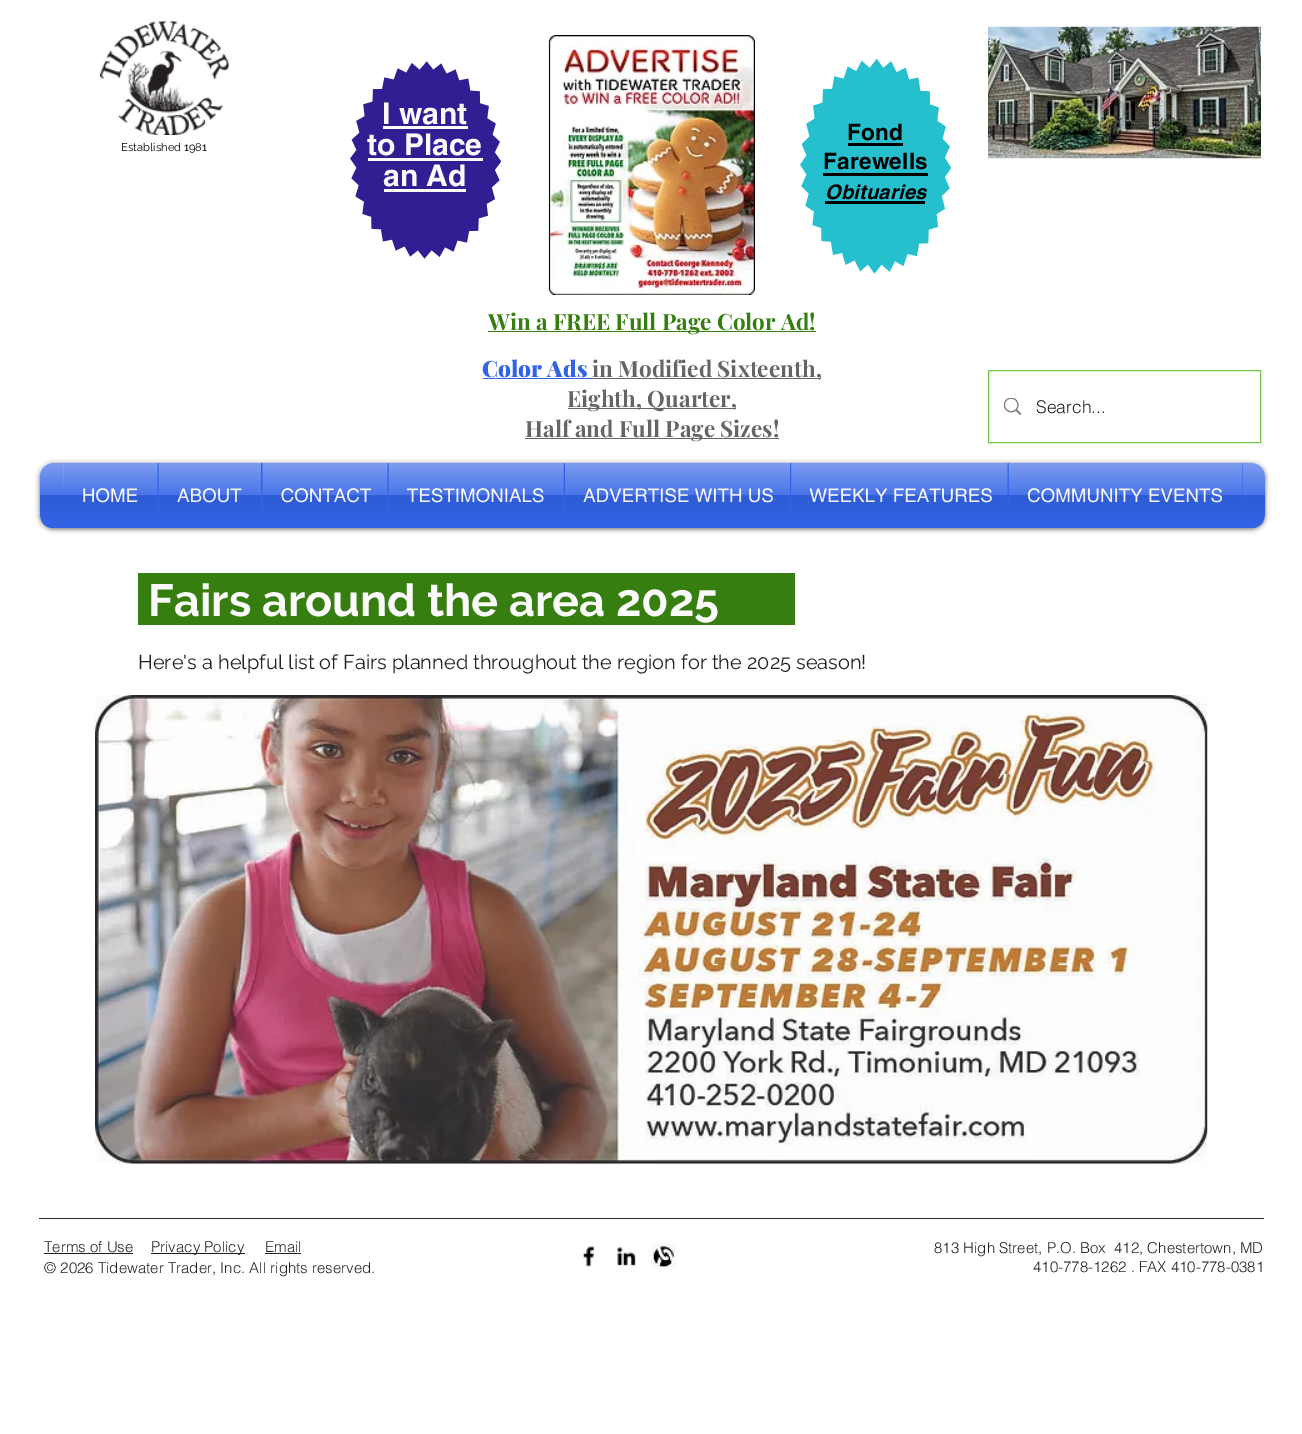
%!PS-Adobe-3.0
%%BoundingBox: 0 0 1302 1434
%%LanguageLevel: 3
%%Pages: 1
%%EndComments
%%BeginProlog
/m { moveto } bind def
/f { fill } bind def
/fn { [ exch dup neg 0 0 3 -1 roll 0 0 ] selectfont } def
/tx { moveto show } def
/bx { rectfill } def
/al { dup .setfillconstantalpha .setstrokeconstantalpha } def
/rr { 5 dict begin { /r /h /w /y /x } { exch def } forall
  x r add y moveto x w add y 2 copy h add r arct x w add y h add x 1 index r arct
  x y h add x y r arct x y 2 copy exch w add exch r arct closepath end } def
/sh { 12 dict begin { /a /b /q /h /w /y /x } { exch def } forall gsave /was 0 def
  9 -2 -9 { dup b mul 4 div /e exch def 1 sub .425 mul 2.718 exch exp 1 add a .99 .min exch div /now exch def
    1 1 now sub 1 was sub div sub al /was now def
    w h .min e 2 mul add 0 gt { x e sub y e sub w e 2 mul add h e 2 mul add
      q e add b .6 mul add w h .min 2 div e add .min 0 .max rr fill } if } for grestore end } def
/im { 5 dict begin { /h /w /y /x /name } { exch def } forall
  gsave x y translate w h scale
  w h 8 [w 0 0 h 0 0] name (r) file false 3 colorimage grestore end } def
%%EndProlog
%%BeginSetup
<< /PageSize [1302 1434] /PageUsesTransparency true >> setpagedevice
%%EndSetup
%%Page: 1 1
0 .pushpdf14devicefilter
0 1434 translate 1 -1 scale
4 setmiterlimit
1 setgray
0 0 1302 1434 bx
(image0.raw) 100 21 129 114 im
/Raleway-Regular 11.25 fn
0 setgray
(Established 1981) 121 151 tx
(image1.raw) 350 61 152 198 im
/helvetica-Bold 30 fn
0.98 setgray
(I want) 382 124 tx
383 126 85 3 bx
(to Place) 367 155 tx
368 158 115 3 bx
(an Ad) 383 186 tx
384 189 82 3 bx
(image2.raw) 548 35 207 260 im
(image3.raw) 800 58 152 216 im
/helvetica-Bold 22.5 fn
0 setgray
847 140 m 0.25 0 (Fond) ashow
848 143 55 3 bx
823 169 m 0.25 0 (Farewells) ashow
823 173 105 3 bx
/helvetica-BoldItalic 20 fn
825 199 m 0.25 0 (Obituaries) ashow
825 201 100 3 bx
(image4.raw) 988 26 273 133 im
0.212 0.494 0.059 setrgbcolor
488 331 328 1 bx
/PlayfairDisplay-Bold 22.5 fn
(Win a FREE Full Page Color Ad!) 488 330 tx
/PlayfairDisplay-Black 22.5 fn
0.196 0.388 0.902 setrgbcolor
(Color Ads) 482 377 tx
483 378 110 1 bx
0.396 setgray
593 378 228 1 bx
/PlayfairDisplay-Bold 22.5 fn
(in Modified Sixteenth,) 592 377 tx
568 408 168 1 bx
(Eighth, Quarter,) 567 407 tx
525 438 254 1 bx
(Half and Full Page Sizes!) 525 437 tx
0.455 0.78 0.263 setrgbcolor
988.5 370.5 272 72 rectstroke
(image5.raw) 1004 398 17 17 im
/helvetica-Light 17.5 fn
0.133 setgray
(Search...) 1036 413 tx
0 setgray
40 464 1225 65 13 2.5 0.6 sh
0.196 0.388 0.902 setrgbcolor
40 463 1225 65 13 rr f
(image6.raw) 40 463 1225 58 im
64 463 1179 58 bx
/helvetica-Regular 18.75 fn
0.98 setgray
(HOME) 82 502 tx
(image7.raw) 63 463 95 58 im
(ABOUT) 177 502 tx
(image8.raw) 158 463 103 58 im
(CONTACT) 281 502 tx
(image9.raw) 262 463 126 58 im
(TESTIMONIALS) 407 502 tx
(image10.raw) 388 463 176 58 im
(ADVERTISE WITH US) 583 502 tx
(image11.raw) 565 463 225 58 im
(WEEKLY FEATURES) 809 502 tx
(image12.raw) 791 463 217 58 im
(COMMUNITY EVENTS) 1027 502 tx
(image13.raw) 1008 463 235 58 im
0.212 0.494 0.059 setrgbcolor
138 573 657 52 bx
/Raleway-Bold 45 fn
0.98 setgray
(Fairs around the area 2025) 148 616 tx
/Raleway-Regular 20 fn
0.133 setgray
(Here's a helpful list of Fairs planned throughout the region for the 2025 season!) 138 669 tx
(image14.raw) 95 695 1113 469 im
0.157 0.149 0.149 setrgbcolor
39 1218 1225 1 bx
/helvetica-Light 15 fn
0.133 setgray
(Terms of Use) 44 1252 tx
44 1253 89 1 bx
151 1253 94 1 bx
(Privacy Policy) 151 1252 tx
(Email) 265 1252 tx
265 1253 36 1 bx
(© 2026 Tidewater Trader, Inc. All rights reserved.) 44 1273 tx
(image15.raw) 583 1246 12 21 im
(image16.raw) 617 1247 19 19 im
(image17.raw) 651 1244 25 25 im
(813 High Street, P.O. Box  412, Chestertown, MD) 934 1253 tx
(410-778-1262 . FAX 410-778-0381) 1033 1272 tx
.poppdf14devicefilter showpage
%%EOF
